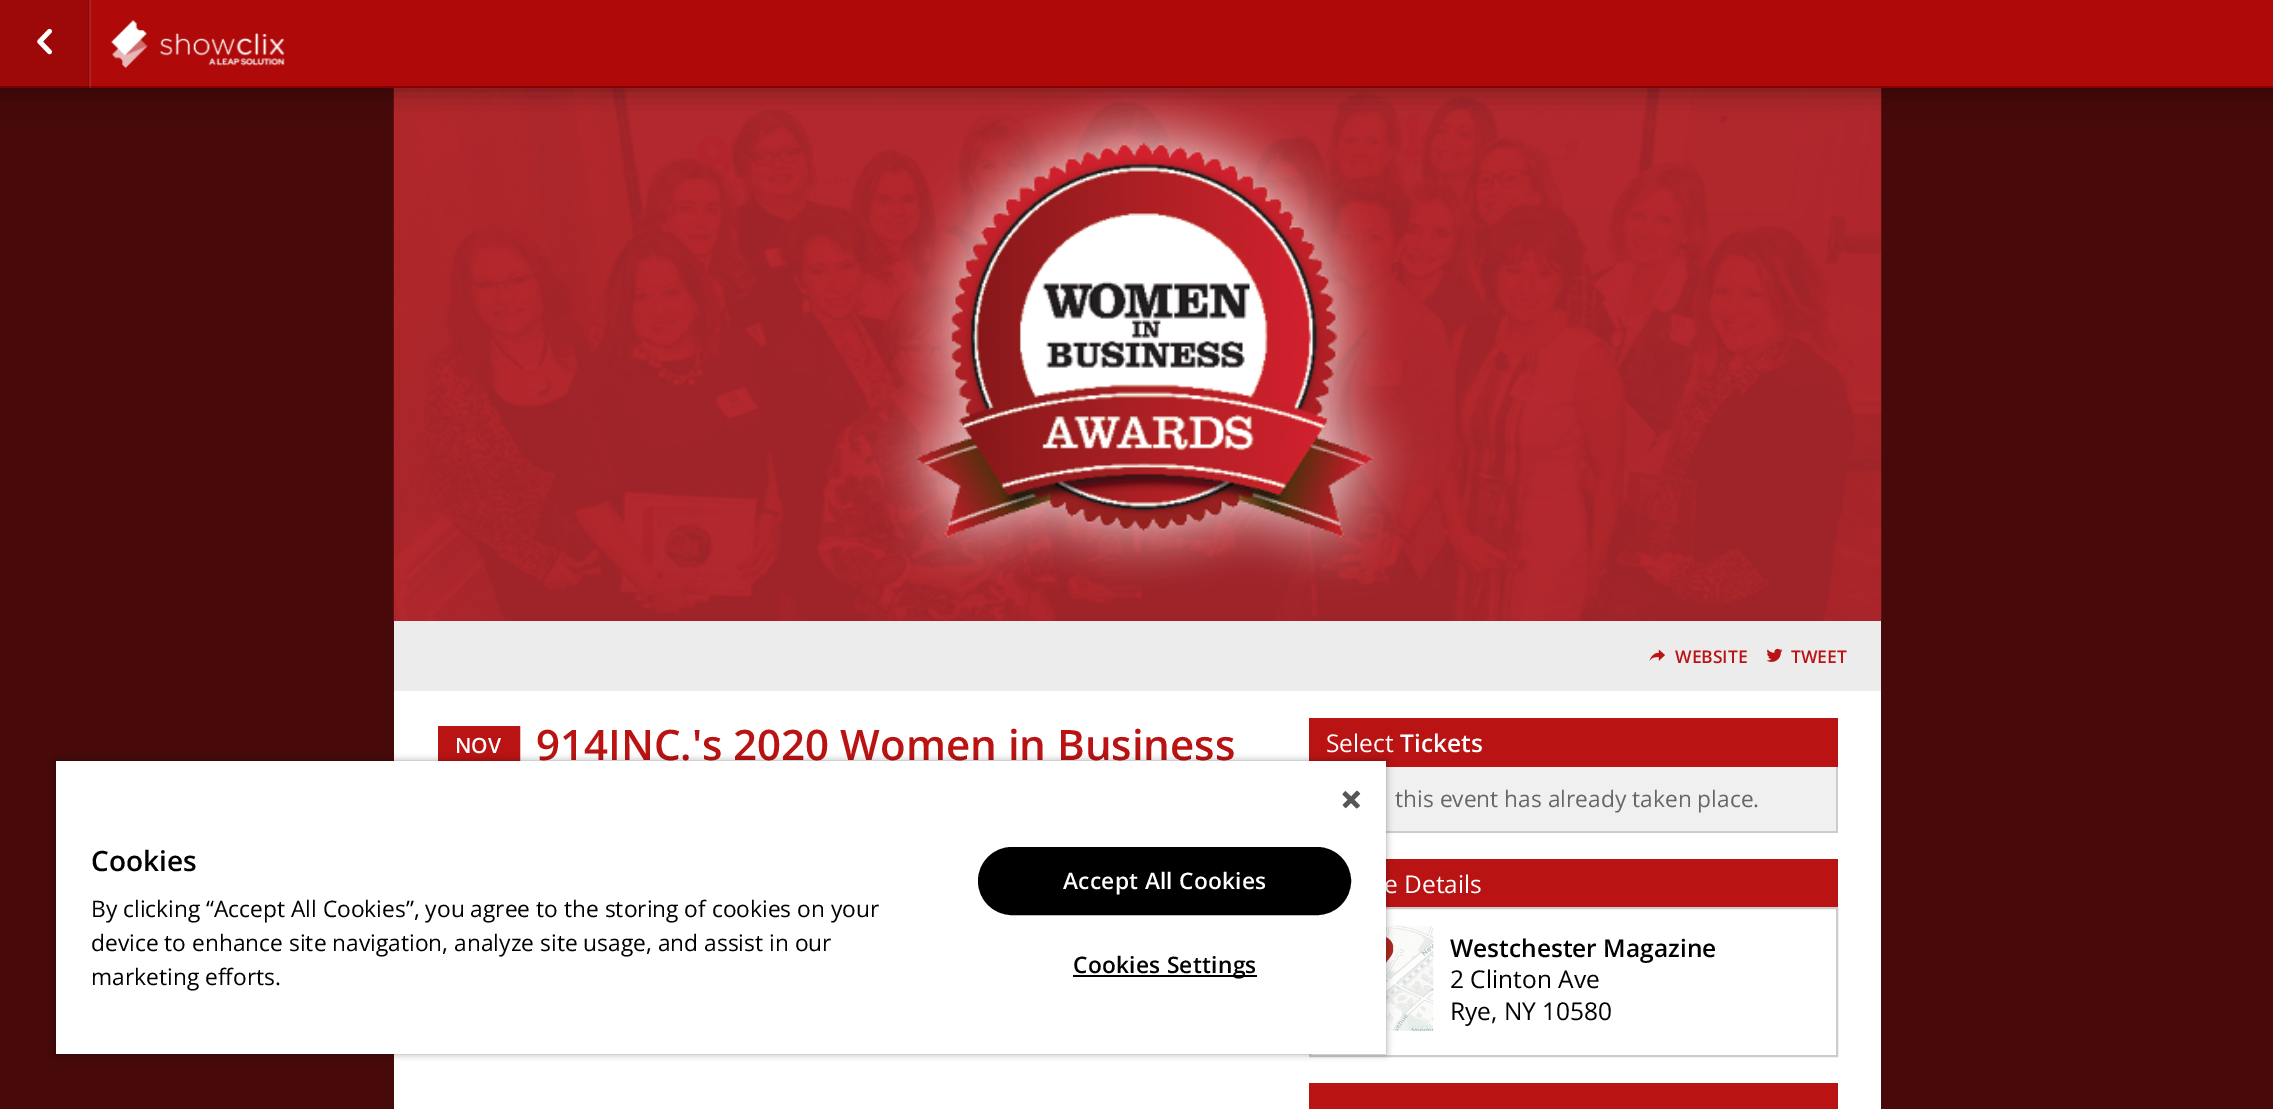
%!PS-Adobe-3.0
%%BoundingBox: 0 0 2273 1109
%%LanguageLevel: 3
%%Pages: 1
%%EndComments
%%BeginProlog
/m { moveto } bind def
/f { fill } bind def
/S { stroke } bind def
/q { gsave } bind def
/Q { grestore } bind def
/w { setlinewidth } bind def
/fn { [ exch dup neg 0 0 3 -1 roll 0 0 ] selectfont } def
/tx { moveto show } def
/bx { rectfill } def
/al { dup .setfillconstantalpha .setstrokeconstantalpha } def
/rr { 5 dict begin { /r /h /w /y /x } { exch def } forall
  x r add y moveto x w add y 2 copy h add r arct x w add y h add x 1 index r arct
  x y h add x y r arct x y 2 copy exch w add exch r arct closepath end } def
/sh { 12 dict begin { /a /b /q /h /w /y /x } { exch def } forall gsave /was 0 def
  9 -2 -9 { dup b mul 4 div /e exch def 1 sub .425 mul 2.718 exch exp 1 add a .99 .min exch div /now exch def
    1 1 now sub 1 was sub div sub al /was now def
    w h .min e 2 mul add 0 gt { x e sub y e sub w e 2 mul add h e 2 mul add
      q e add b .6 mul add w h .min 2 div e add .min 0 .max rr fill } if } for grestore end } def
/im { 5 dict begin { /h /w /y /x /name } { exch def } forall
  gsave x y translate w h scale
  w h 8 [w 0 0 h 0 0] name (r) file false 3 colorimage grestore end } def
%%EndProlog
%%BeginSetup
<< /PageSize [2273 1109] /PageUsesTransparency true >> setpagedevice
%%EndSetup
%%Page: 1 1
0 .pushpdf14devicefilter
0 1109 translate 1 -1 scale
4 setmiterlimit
0.278 0.035 0.035 setrgbcolor
0 0 2273 1109 bx
(image2.raw) 393 88 1489 534 im
0 setgray
0 2 2273 87 0 13 0.4 sh
0.686 0.035 0.035 setrgbcolor
0 0 2273 86 bx
0.529 0 0 setrgbcolor
0 86 2273 2 bx
0.1 al
1 setgray
89 0 2 88 bx
0 setgray
0 0 89 88 bx
88 0 2 88 bx
1 al
(image0.raw) 37 28 15 27 im
(image1.raw) 111 20 174 49 im
1 setgray
394 691 1487 418 bx
0.925 setgray
394 621 1487 70 bx
(image3.raw) 1649 649 16 12 im
/OpenSans-SemiBold 17.5 fn
0.725 0.075 0.075 setrgbcolor
(WEBSITE) 1675 663 tx
(image4.raw) 1766 648 17 14 im
(TWEET) 1791 663 tx
2 w
439 727 80 81 rectstroke
440 728 78 33 bx
/OpenSans-SemiBold 21 fn
1 setgray
(NOV) 455 753 tx
/OpenSans-SemiBold 42 fn
0.725 0.075 0.075 setrgbcolor
(914INC.'s 2020 Women in Business) 536 760 tx
1309 718 529 49 bx
/OpenSans-Regular 24.5 fn
1 setgray
(Select) 1326 752 tx
/OpenSans-SemiBold 24.5 fn
(Tickets) 1400 752 tx
0.941 setgray
1386 767 450 64 bx
0.8 setgray
1836 767 2 66 bx
1386 831 452 2 bx
/OpenSans-Regular 22.75 fn
0.4 setgray
(this event has already taken place.) 1395 807 tx
0.725 0.075 0.075 setrgbcolor
1386 859 452 48 bx
/OpenSans-Regular 24.5 fn
1 setgray
(e Details) 1384 893 tx
0.8 setgray
1310 908 527 148 rectstroke
(image5.raw) 1386 925 48 106 im
/OpenSans-SemiBold 24.5 fn
0 setgray
(Westchester Magazine) 1450 957 tx
/OpenSans-Regular 24.5 fn
(2 Clinton Ave) 1450 988 tx
(Rye, NY 10580) 1450 1020 tx
0.725 0.075 0.075 setrgbcolor
1309 1083 529 26 bx
0 setgray
56 761 1330 293 0 3.5 0.35 sh
1 setgray
56 761 1330 293 bx
(image6.raw) 1342 790 19 19 im
/OpenSans-SemiBold 28 fn
0 setgray
(Cookies) 91 871 tx
/OpenSans-Regular 22.75 fn
(By clicking “Accept All Cookies”, you agree to the storing of cookies on your) 91 917 tx
(device to enhance site navigation, analyze site usage, and assist in our) 91 951 tx
(marketing efforts.) 91 985 tx
979 848 371 66 33 rr q f Q
S
/OpenSans-SemiBold 22.75 fn
1 setgray
1063 889 m 0.25 0 (Accept All Cookies) ashow
0 setgray
1073 975 184 2 bx
1073 973 m 0.25 0 (Cookies Settings) ashow
.poppdf14devicefilter showpage
%%EOF
